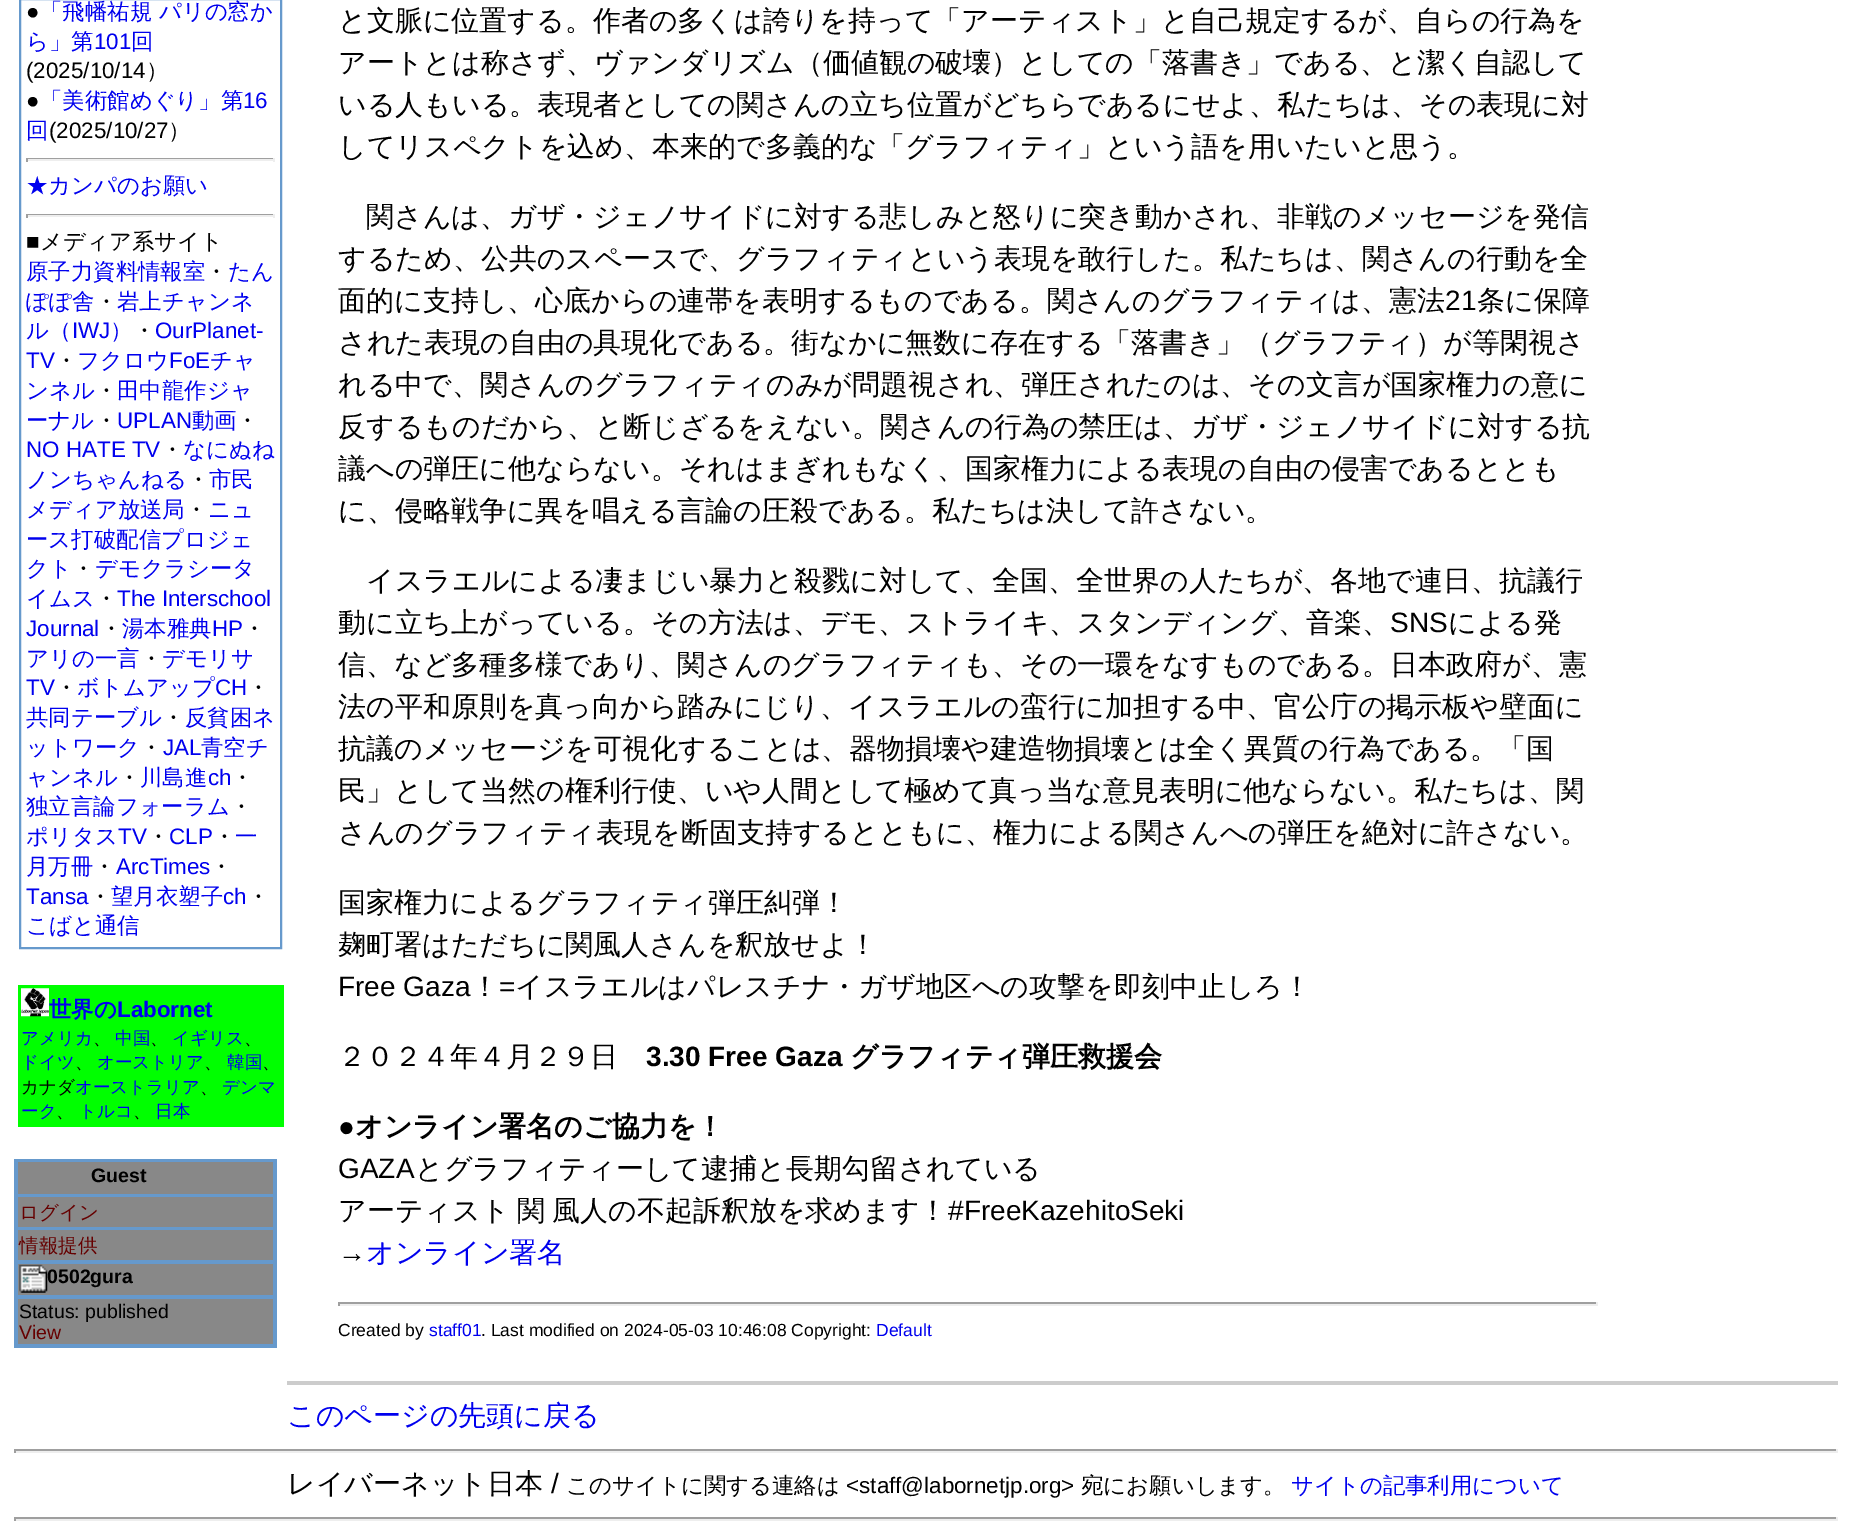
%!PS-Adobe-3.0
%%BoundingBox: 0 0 1851 1534
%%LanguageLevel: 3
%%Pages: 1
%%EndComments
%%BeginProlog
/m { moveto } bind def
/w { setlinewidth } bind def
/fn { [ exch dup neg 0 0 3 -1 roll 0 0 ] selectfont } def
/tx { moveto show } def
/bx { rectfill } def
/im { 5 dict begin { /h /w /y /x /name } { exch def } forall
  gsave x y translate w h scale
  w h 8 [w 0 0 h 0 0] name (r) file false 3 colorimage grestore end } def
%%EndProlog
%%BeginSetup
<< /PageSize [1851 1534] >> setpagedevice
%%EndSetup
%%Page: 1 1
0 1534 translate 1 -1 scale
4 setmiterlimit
1 setgray
0 0 1851 1534 bx
0.4 0.6 0.8 setrgbcolor
2 w
20 -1 261 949 rectstroke
/LiberationSans-Regular 22.4 fn
0 setgray
(●) 26 19 tx
/WenQuanYiZenHei-Medium 22.4 fn
0 0 0.933 setrgbcolor
(「飛幡祐規 パリの窓か) 40 19 tx
(ら」第) 26 49 tx
/LiberationSans-Regular 22.4 fn
(101) 94 49 tx
/WenQuanYiZenHei-Medium 22.4 fn
(回) 131 49 tx
/LiberationSans-Regular 22.4 fn
0 setgray
(\(2025/10/14) 26 78 tx
/WenQuanYiZenHei-Medium 22.4 fn
(）) 146 78 tx
/LiberationSans-Regular 22.4 fn
(●) 26 108 tx
/WenQuanYiZenHei-Medium 22.4 fn
0 0 0.933 setrgbcolor
(「美術館めぐり」第) 40 108 tx
/LiberationSans-Regular 22.4 fn
(16) 243 108 tx
/WenQuanYiZenHei-Medium 22.4 fn
(回) 26 138 tx
/LiberationSans-Regular 22.4 fn
0 setgray
(\(2025/10/27) 49 138 tx
/WenQuanYiZenHei-Medium 22.4 fn
(）) 168 138 tx
0.624 setgray
26 158 249 1 bx
0.933 setgray
273 158 2 4 bx
26 159 249 2 bx
0.624 setgray
26 158 2 4 bx
0 0 0.933 setrgbcolor
(★カンパのお願い) 26 193 tx
0.624 setgray
26 214 249 1 bx
0.933 setgray
273 214 2 4 bx
26 215 249 2 bx
0.624 setgray
26 214 2 4 bx
/LiberationSans-Regular 22.4 fn
0 setgray
(■) 26 249 tx
/WenQuanYiZenHei-Medium 22.4 fn
(メディア系サイト) 40 249 tx
0 0 0.933 setrgbcolor
(原子力資料情報室) 26 279 tx
0 setgray
(・) 205 279 tx
0 0 0.933 setrgbcolor
(たん) 228 279 tx
(ぽぽ舎) 26 309 tx
0 setgray
(・) 95 309 tx
0 0 0.933 setrgbcolor
(岩上チャンネ) 117 309 tx
(ル（) 26 338 tx
/LiberationSans-Regular 22.4 fn
(IWJ) 72 338 tx
/WenQuanYiZenHei-Medium 22.4 fn
(）) 110 338 tx
0 setgray
(・) 133 338 tx
/LiberationSans-Regular 22.4 fn
0 0 0.933 setrgbcolor
(OurPlanet-) 155 338 tx
(TV) 26 368 tx
/WenQuanYiZenHei-Medium 22.4 fn
0 setgray
(・) 55 368 tx
0 0 0.933 setrgbcolor
(フクロウ) 77 368 tx
/LiberationSans-Regular 22.4 fn
(FoE) 169 368 tx
/WenQuanYiZenHei-Medium 22.4 fn
(チャ) 210 368 tx
(ンネル) 26 398 tx
0 setgray
(・) 95 398 tx
0 0 0.933 setrgbcolor
(田中龍作ジャ) 117 398 tx
(ーナル) 26 428 tx
0 setgray
(・) 95 428 tx
/LiberationSans-Regular 22.4 fn
0 0 0.933 setrgbcolor
(UPLAN) 117 428 tx
/WenQuanYiZenHei-Medium 22.4 fn
(動画) 192 428 tx
0 setgray
(・) 236 428 tx
/LiberationSans-Regular 22.4 fn
0 0 0.933 setrgbcolor
(NO HATE TV) 26 457 tx
/WenQuanYiZenHei-Medium 22.4 fn
0 setgray
(・) 161 457 tx
0 0 0.933 setrgbcolor
(なにぬね) 183 457 tx
(ノンちゃんねる) 26 487 tx
0 setgray
(・) 187 487 tx
0 0 0.933 setrgbcolor
(市民) 209 487 tx
(メディア放送局) 26 517 tx
0 setgray
(・) 185 517 tx
0 0 0.933 setrgbcolor
(ニュ) 208 517 tx
(ース打破配信プロジェ) 26 547 tx
(クト) 26 576 tx
0 setgray
(・) 72 576 tx
0 0 0.933 setrgbcolor
(デモクラシータ) 95 576 tx
(イムス) 26 606 tx
0 setgray
(・) 95 606 tx
/LiberationSans-Regular 22.4 fn
0 0 0.933 setrgbcolor
(The Interschool) 117 606 tx
(Journal) 26 636 tx
/WenQuanYiZenHei-Medium 22.4 fn
0 setgray
(・) 100 636 tx
0 0 0.933 setrgbcolor
(湯本雅典) 122 636 tx
/LiberationSans-Regular 22.4 fn
(HP) 212 636 tx
/WenQuanYiZenHei-Medium 22.4 fn
0 setgray
(・) 243 636 tx
0 0 0.933 setrgbcolor
(アリの一言) 26 666 tx
0 setgray
(・) 140 666 tx
0 0 0.933 setrgbcolor
(デモリサ) 162 666 tx
/LiberationSans-Regular 22.4 fn
(TV) 26 695 tx
/WenQuanYiZenHei-Medium 22.4 fn
0 setgray
(・) 55 695 tx
0 0 0.933 setrgbcolor
(ボトムアップ) 77 695 tx
/LiberationSans-Regular 22.4 fn
(CH) 215 695 tx
/WenQuanYiZenHei-Medium 22.4 fn
0 setgray
(・) 247 695 tx
0 0 0.933 setrgbcolor
(共同テーブル) 26 725 tx
0 setgray
(・) 162 725 tx
0 0 0.933 setrgbcolor
(反貧困ネ) 185 725 tx
(ットワーク) 26 755 tx
0 setgray
(・) 140 755 tx
/LiberationSans-Regular 22.4 fn
0 0 0.933 setrgbcolor
(JAL) 163 755 tx
/WenQuanYiZenHei-Medium 22.4 fn
(青空チ) 201 755 tx
(ャンネル) 26 785 tx
0 setgray
(・) 118 785 tx
0 0 0.933 setrgbcolor
(川島進) 140 785 tx
/LiberationSans-Regular 22.4 fn
(ch) 208 785 tx
/WenQuanYiZenHei-Medium 22.4 fn
0 setgray
(・) 231 785 tx
0 0 0.933 setrgbcolor
(独立言論フォーラム) 26 814 tx
0 setgray
(・) 230 814 tx
0 0 0.933 setrgbcolor
(ポリタス) 26 844 tx
/LiberationSans-Regular 22.4 fn
(TV) 118 844 tx
/WenQuanYiZenHei-Medium 22.4 fn
0 setgray
(・) 147 844 tx
/LiberationSans-Regular 22.4 fn
0 0 0.933 setrgbcolor
(CLP) 169 844 tx
/WenQuanYiZenHei-Medium 22.4 fn
0 setgray
(・) 213 844 tx
0 0 0.933 setrgbcolor
(一) 235 844 tx
(月万冊) 26 874 tx
0 setgray
(・) 93 874 tx
/LiberationSans-Regular 22.4 fn
0 0 0.933 setrgbcolor
(ArcTimes) 116 874 tx
/WenQuanYiZenHei-Medium 22.4 fn
0 setgray
(・) 210 874 tx
/LiberationSans-Regular 22.4 fn
0 0 0.933 setrgbcolor
(Tansa) 26 904 tx
/WenQuanYiZenHei-Medium 22.4 fn
0 setgray
(・) 89 904 tx
0 0 0.933 setrgbcolor
(望月衣塑子) 111 904 tx
/LiberationSans-Regular 22.4 fn
(ch) 223 904 tx
/WenQuanYiZenHei-Medium 22.4 fn
0 setgray
(・) 247 904 tx
0 0 0.933 setrgbcolor
(こばと通信) 26 933 tx
0 1 0 setrgbcolor
18 985 266 142 bx
(image0.raw) 21 988 28 29 im
/WenQuanYiZenHei-Bold 22.4 fn
0 0 0.933 setrgbcolor
(世界の) 49 1017 tx
/LiberationSans-Bold 22.4 fn
(Labornet) 117 1017 tx
/WenQuanYiZenHei-Medium 17.5 fn
(アメリカ) 21 1044 tx
0 setgray
(、) 93 1044 tx
0 0 0.933 setrgbcolor
(中国) 115 1044 tx
0 setgray
(、) 150 1044 tx
0 0 0.933 setrgbcolor
(イギリス) 172 1044 tx
0 setgray
(、) 244 1044 tx
0 0 0.933 setrgbcolor
(ドイツ) 21 1068 tx
0 setgray
(、) 75 1068 tx
0 0 0.933 setrgbcolor
(オーストリア) 97 1068 tx
0 setgray
(、) 204 1068 tx
0 0 0.933 setrgbcolor
(韓国) 227 1068 tx
0 setgray
(、) 262 1068 tx
(カナダ) 21 1093 tx
0 0 0.933 setrgbcolor
(オーストラリア) 75 1093 tx
0 setgray
(、) 200 1093 tx
0 0 0.933 setrgbcolor
(デンマ) 222 1093 tx
(ーク) 21 1117 tx
0 setgray
(、) 56 1117 tx
0 0 0.933 setrgbcolor
(トルコ) 79 1117 tx
0 setgray
(、) 133 1117 tx
0 0 0.933 setrgbcolor
(日本) 155 1117 tx
0.4 0.6 0.8 setrgbcolor
14 1159 263 189 bx
0.533 setgray
18 1162 255 32 bx
/LiberationSans-Bold 19.5 fn
0 setgray
(Guest) 91 1182 tx
0.533 setgray
18 1197 255 30 bx
/WenQuanYiZenHei-Medium 19.5 fn
0.4 0 0 setrgbcolor
(ログイン) 19 1219 tx
0.533 setgray
18 1230 255 30 bx
0.4 0 0 setrgbcolor
(情報提供) 19 1252 tx
0.533 setgray
18 1264 255 31 bx
(image1.raw) 19 1264 29 29 im
/LiberationSans-Bold 19.5 fn
0 setgray
(0502gura) 47 1283 tx
0.533 setgray
18 1299 255 45 bx
/LiberationSans-Regular 19.5 fn
0 setgray
(Status: published) 19 1318 tx
0.4 0 0 setrgbcolor
(View) 19 1339 tx
/WenQuanYiZenHei-Medium 28 fn
0 setgray
(と文脈に位置する。作者の多くは誇りを持って「アーティスト」と自己規定するが、自らの行為を) 338 30 tx
(アートとは称さず、ヴァンダリズム（価値観の破壊）としての「落書き」である、と潔く自認して) 338 72 tx
(いる人もいる。表現者としての関さんの立ち位置がどちらであるにせよ、私たちは、その表現に対) 338 114 tx
(してリスペクトを込め、本来的で多義的な「グラフィティ」という語を用いたいと思う。) 338 156 tx
(関さんは、ガザ・ジェノサイドに対する悲しみと怒りに突き動かされ、非戦のメッセージを発信) 366 226 tx
(するため、公共のスペースで、グラフィティという表現を敢行した。私たちは、関さんの行動を全) 338 268 tx
(面的に支持し、心底からの連帯を表明するものである。関さんのグラフィティは、憲法) 338 310 tx
/LiberationSans-Regular 28 fn
(21) 1445 310 tx
/WenQuanYiZenHei-Medium 28 fn
(条に保障) 1477 310 tx
(された表現の自由の具現化である。街なかに無数に存在する「落書き」（グラフティ）が等閑視さ) 338 352 tx
(れる中で、関さんのグラフィティのみが問題視され、弾圧されたのは、その文言が国家権力の意に) 338 394 tx
(反するものだから、と断じざるをえない。関さんの行為の禁圧は、ガザ・ジェノサイドに対する抗) 338 436 tx
(議への弾圧に他ならない。それはまぎれもなく、国家権力による表現の自由の侵害であるととも) 338 478 tx
(に、侵略戦争に異を唱える言論の圧殺である。私たちは決して許さない。) 338 520 tx
(イスラエルによる凄まじい暴力と殺戮に対して、全国、全世界の人たちが、各地で連日、抗議行) 366 590 tx
(動に立ち上がっている。その方法は、デモ、ストライキ、スタンディング、音楽、) 338 632 tx
/LiberationSans-Regular 28 fn
(SNS) 1390 632 tx
/WenQuanYiZenHei-Medium 28 fn
(による発) 1448 632 tx
(信、など多種多様であり、関さんのグラフィティも、その一環をなすものである。日本政府が、憲) 338 674 tx
(法の平和原則を真っ向から踏みにじり、イスラエルの蛮行に加担する中、官公庁の掲示板や壁面に) 338 716 tx
(抗議のメッセージを可視化することは、器物損壊や建造物損壊とは全く異質の行為である。「国) 338 758 tx
(民」として当然の権利行使、いや人間として極めて真っ当な意見表明に他ならない。私たちは、関) 338 800 tx
(さんのグラフィティ表現を断固支持するとともに、権力による関さんへの弾圧を絶対に許さない。) 338 842 tx
(国家権力によるグラフィティ弾圧糾弾！) 338 912 tx
(麹町署はただちに関風人さんを釈放せよ！) 338 954 tx
/LiberationSans-Regular 28 fn
(Free Gaza) 338 996 tx
/WenQuanYiZenHei-Medium 28 fn
(！) 471 996 tx
/LiberationSans-Regular 28 fn
(=) 499 996 tx
/WenQuanYiZenHei-Medium 28 fn
(イスラエルはパレスチナ・ガザ地区への攻撃を即刻中止しろ！) 515 996 tx
(２０２４年４月２９日) 338 1066 tx
/LiberationSans-Bold 28 fn
(3.30 Free Gaza) 646 1066 tx
/WenQuanYiZenHei-Bold 28 fn
(グラフィティ弾圧救援会) 850 1066 tx
/LiberationSans-Bold 28 fn
(●) 338 1136 tx
/WenQuanYiZenHei-Bold 28 fn
(オンライン署名のご協力を！) 355 1136 tx
/LiberationSans-Regular 28 fn
(GAZA) 338 1178 tx
/WenQuanYiZenHei-Medium 28 fn
(とグラフィティーして逮捕と長期勾留されている) 415 1178 tx
338 1220 m -1 0 32 (アーティスト 関 風人の不起訴釈放を求めます！) widthshow
/LiberationSans-Regular 28 fn
(#FreeKazehitoSeki) 948 1220 tx
(→) 338 1262 tx
/WenQuanYiZenHei-Medium 28 fn
0 0 0.933 setrgbcolor
(オンライン署名) 366 1262 tx
0.624 setgray
338 1302 1260 2 bx
0.933 setgray
1596 1302 2 4 bx
338 1304 1260 2 bx
0.624 setgray
338 1302 2 4 bx
/LiberationSans-Regular 17.5 fn
0 setgray
(Created by) 338 1336 tx
0 0 0.933 setrgbcolor
(staff01) 429 1336 tx
0 setgray
(. Last modified on 2024-05-03 10:46:08 Copyright:) 481 1336 tx
0 0 0.933 setrgbcolor
(Default) 876 1336 tx
0.8 setgray
287 1381 1551 4 bx
/WenQuanYiZenHei-Medium 28 fn
0 0 0.933 setrgbcolor
(このページの先頭に戻る) 287 1425 tx
0.624 setgray
14 1449 1824 2 bx
0.933 setgray
1836 1449 2 4 bx
14 1451 1824 2 bx
0.624 setgray
14 1449 2 4 bx
0 setgray
(レイバーネット日本) 287 1493 tx
/LiberationSans-Regular 28 fn
(/) 551 1493 tx
/WenQuanYiZenHei-Medium 22.4 fn
(このサイトに関する連絡は) 566 1493 tx
/LiberationSans-Regular 22.4 fn
(<staff@labornetjp.org>) 846 1493 tx
/WenQuanYiZenHei-Medium 22.4 fn
(宛にお願いします。) 1081 1493 tx
0 0 0.933 setrgbcolor
(サイトの記事利用について) 1291 1493 tx
0.624 setgray
14 1517 1824 2 bx
0.933 setgray
1836 1517 2 4 bx
14 1519 1824 2 bx
0.624 setgray
14 1517 2 4 bx
showpage
%%EOF
